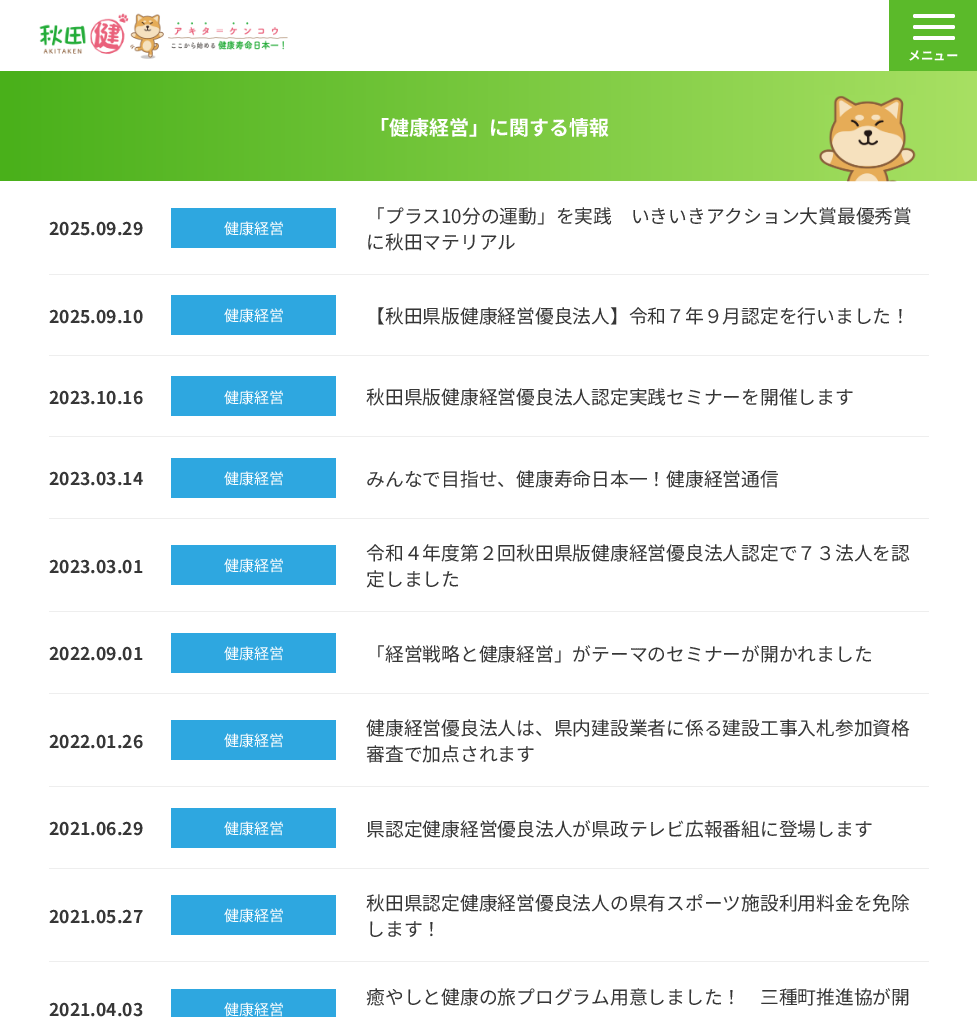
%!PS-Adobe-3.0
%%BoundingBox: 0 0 977 1017
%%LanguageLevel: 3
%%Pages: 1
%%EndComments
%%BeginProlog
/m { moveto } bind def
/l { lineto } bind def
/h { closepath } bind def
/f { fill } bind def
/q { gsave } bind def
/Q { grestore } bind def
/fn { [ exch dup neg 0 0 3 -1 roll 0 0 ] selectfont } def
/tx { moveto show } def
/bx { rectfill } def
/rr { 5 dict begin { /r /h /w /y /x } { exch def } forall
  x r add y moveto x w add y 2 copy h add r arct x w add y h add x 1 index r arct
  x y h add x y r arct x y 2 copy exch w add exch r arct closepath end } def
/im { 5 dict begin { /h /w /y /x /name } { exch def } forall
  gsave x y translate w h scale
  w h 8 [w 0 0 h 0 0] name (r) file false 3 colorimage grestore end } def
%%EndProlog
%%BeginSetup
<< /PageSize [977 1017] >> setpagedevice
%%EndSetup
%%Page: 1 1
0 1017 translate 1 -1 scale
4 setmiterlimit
1 setgray
0 0 977 1017 bx
(image0.raw) 39 13 249 46 im
0.357 0.729 0.165 setrgbcolor
889 0 88 71 bx
1 setgray
913 25 42 4 2 rr f
913 14 42 4 2 rr f
913 36 42 4 2 rr f
/NotoSansJP-Bold 12.5 fn
(メニュー) 908 60 tx
q 0 71 m 977 71 l 977 181 l 0 181 l h clip newpath
<< /ShadingType 2 /ColorSpace /DeviceRGB /Coords [0 126 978 126] /Extend [true true] /Function << /FunctionType 2 /Domain [0 1] /C0 [0.286 0.69 0.102] /C1 [0.659 0.878 0.388] /N 1 >> >> shfill Q
(image1.raw) 819 95 97 87 im
/NotoSansJP-Bold 20 fn
(「健康経営」に関する情報) 369 135 tx
0.933 setgray
49 274 880 1 bx
/NotoSansJP-Bold 17.5 fn
0.212 setgray
(2025.09.29) 49 235 tx
0.18 0.655 0.878 setrgbcolor
171 208 165 40 bx
/NotoSansJP-Regular 15 fn
1 setgray
(健康経営) 224 234 tx
/NotoSansJP-Regular 18.75 fn
0.212 setgray
(「プラス10分の運動」を実践　いきいきアクション大賞最優秀賞) 366 223 tx
(に秋田マテリアル) 366 249 tx
0.933 setgray
49 355 880 1 bx
/NotoSansJP-Bold 17.5 fn
0.212 setgray
(2025.09.10) 49 323 tx
0.18 0.655 0.878 setrgbcolor
171 295 165 40 bx
/NotoSansJP-Regular 15 fn
1 setgray
(健康経営) 224 321 tx
/NotoSansJP-Regular 18.75 fn
0.212 setgray
(【秋田県版健康経営優良法人】令和７年９月認定を行いました！) 366 323 tx
0.933 setgray
49 436 880 1 bx
/NotoSansJP-Bold 17.5 fn
0.212 setgray
(2023.10.16) 49 404 tx
0.18 0.655 0.878 setrgbcolor
171 376 165 40 bx
/NotoSansJP-Regular 15 fn
1 setgray
(健康経営) 224 403 tx
/NotoSansJP-Regular 18.75 fn
0.212 setgray
(秋田県版健康経営優良法人認定実践セミナーを開催します) 366 404 tx
0.933 setgray
49 518 880 1 bx
/NotoSansJP-Bold 17.5 fn
0.212 setgray
(2023.03.14) 49 485 tx
0.18 0.655 0.878 setrgbcolor
171 458 165 40 bx
/NotoSansJP-Regular 15 fn
1 setgray
(健康経営) 224 484 tx
/NotoSansJP-Regular 18.75 fn
0.212 setgray
(みんなで目指せ、健康寿命日本一！健康経営通信) 366 486 tx
0.933 setgray
49 611 880 1 bx
/NotoSansJP-Bold 17.5 fn
0.212 setgray
(2023.03.01) 49 573 tx
0.18 0.655 0.878 setrgbcolor
171 545 165 40 bx
/NotoSansJP-Regular 15 fn
1 setgray
(健康経営) 224 571 tx
/NotoSansJP-Regular 18.75 fn
0.212 setgray
(令和４年度第２回秋田県版健康経営優良法人認定で７３法人を認) 366 560 tx
(定しました) 366 586 tx
0.933 setgray
49 693 880 1 bx
/NotoSansJP-Bold 17.5 fn
0.212 setgray
(2022.09.01) 49 660 tx
0.18 0.655 0.878 setrgbcolor
171 633 165 40 bx
/NotoSansJP-Regular 15 fn
1 setgray
(健康経営) 224 659 tx
/NotoSansJP-Regular 18.75 fn
0.212 setgray
(「経営戦略と健康経営」がテーマのセミナーが開かれました) 366 661 tx
0.933 setgray
49 786 880 1 bx
/NotoSansJP-Bold 17.5 fn
0.212 setgray
(2022.01.26) 49 748 tx
0.18 0.655 0.878 setrgbcolor
171 720 165 40 bx
/NotoSansJP-Regular 15 fn
1 setgray
(健康経営) 224 746 tx
/NotoSansJP-Regular 18.75 fn
0.212 setgray
(健康経営優良法人は、県内建設業者に係る建設工事入札参加資格) 366 735 tx
(審査で加点されます) 366 761 tx
0.933 setgray
49 868 880 1 bx
/NotoSansJP-Bold 17.5 fn
0.212 setgray
(2021.06.29) 49 835 tx
0.18 0.655 0.878 setrgbcolor
171 808 165 40 bx
/NotoSansJP-Regular 15 fn
1 setgray
(健康経営) 224 834 tx
/NotoSansJP-Regular 18.75 fn
0.212 setgray
(県認定健康経営優良法人が県政テレビ広報番組に登場します) 366 836 tx
0.933 setgray
49 961 880 1 bx
/NotoSansJP-Bold 17.5 fn
0.212 setgray
(2021.05.27) 49 923 tx
0.18 0.655 0.878 setrgbcolor
171 895 165 40 bx
/NotoSansJP-Regular 15 fn
1 setgray
(健康経営) 224 921 tx
/NotoSansJP-Regular 18.75 fn
0.212 setgray
(秋田県認定健康経営優良法人の県有スポーツ施設利用料金を免除) 366 910 tx
(します！) 366 936 tx
(癒やしと健康の旅プログラム用意しました！　三種町推進協が開) 366 1004 tx
/NotoSansJP-Bold 17.5 fn
(2021.04.03) 49 1016 tx
0.18 0.655 0.878 setrgbcolor
171 989 165 28 bx
/NotoSansJP-Regular 15 fn
1 setgray
(健康経営) 224 1015 tx
showpage
%%EOF
